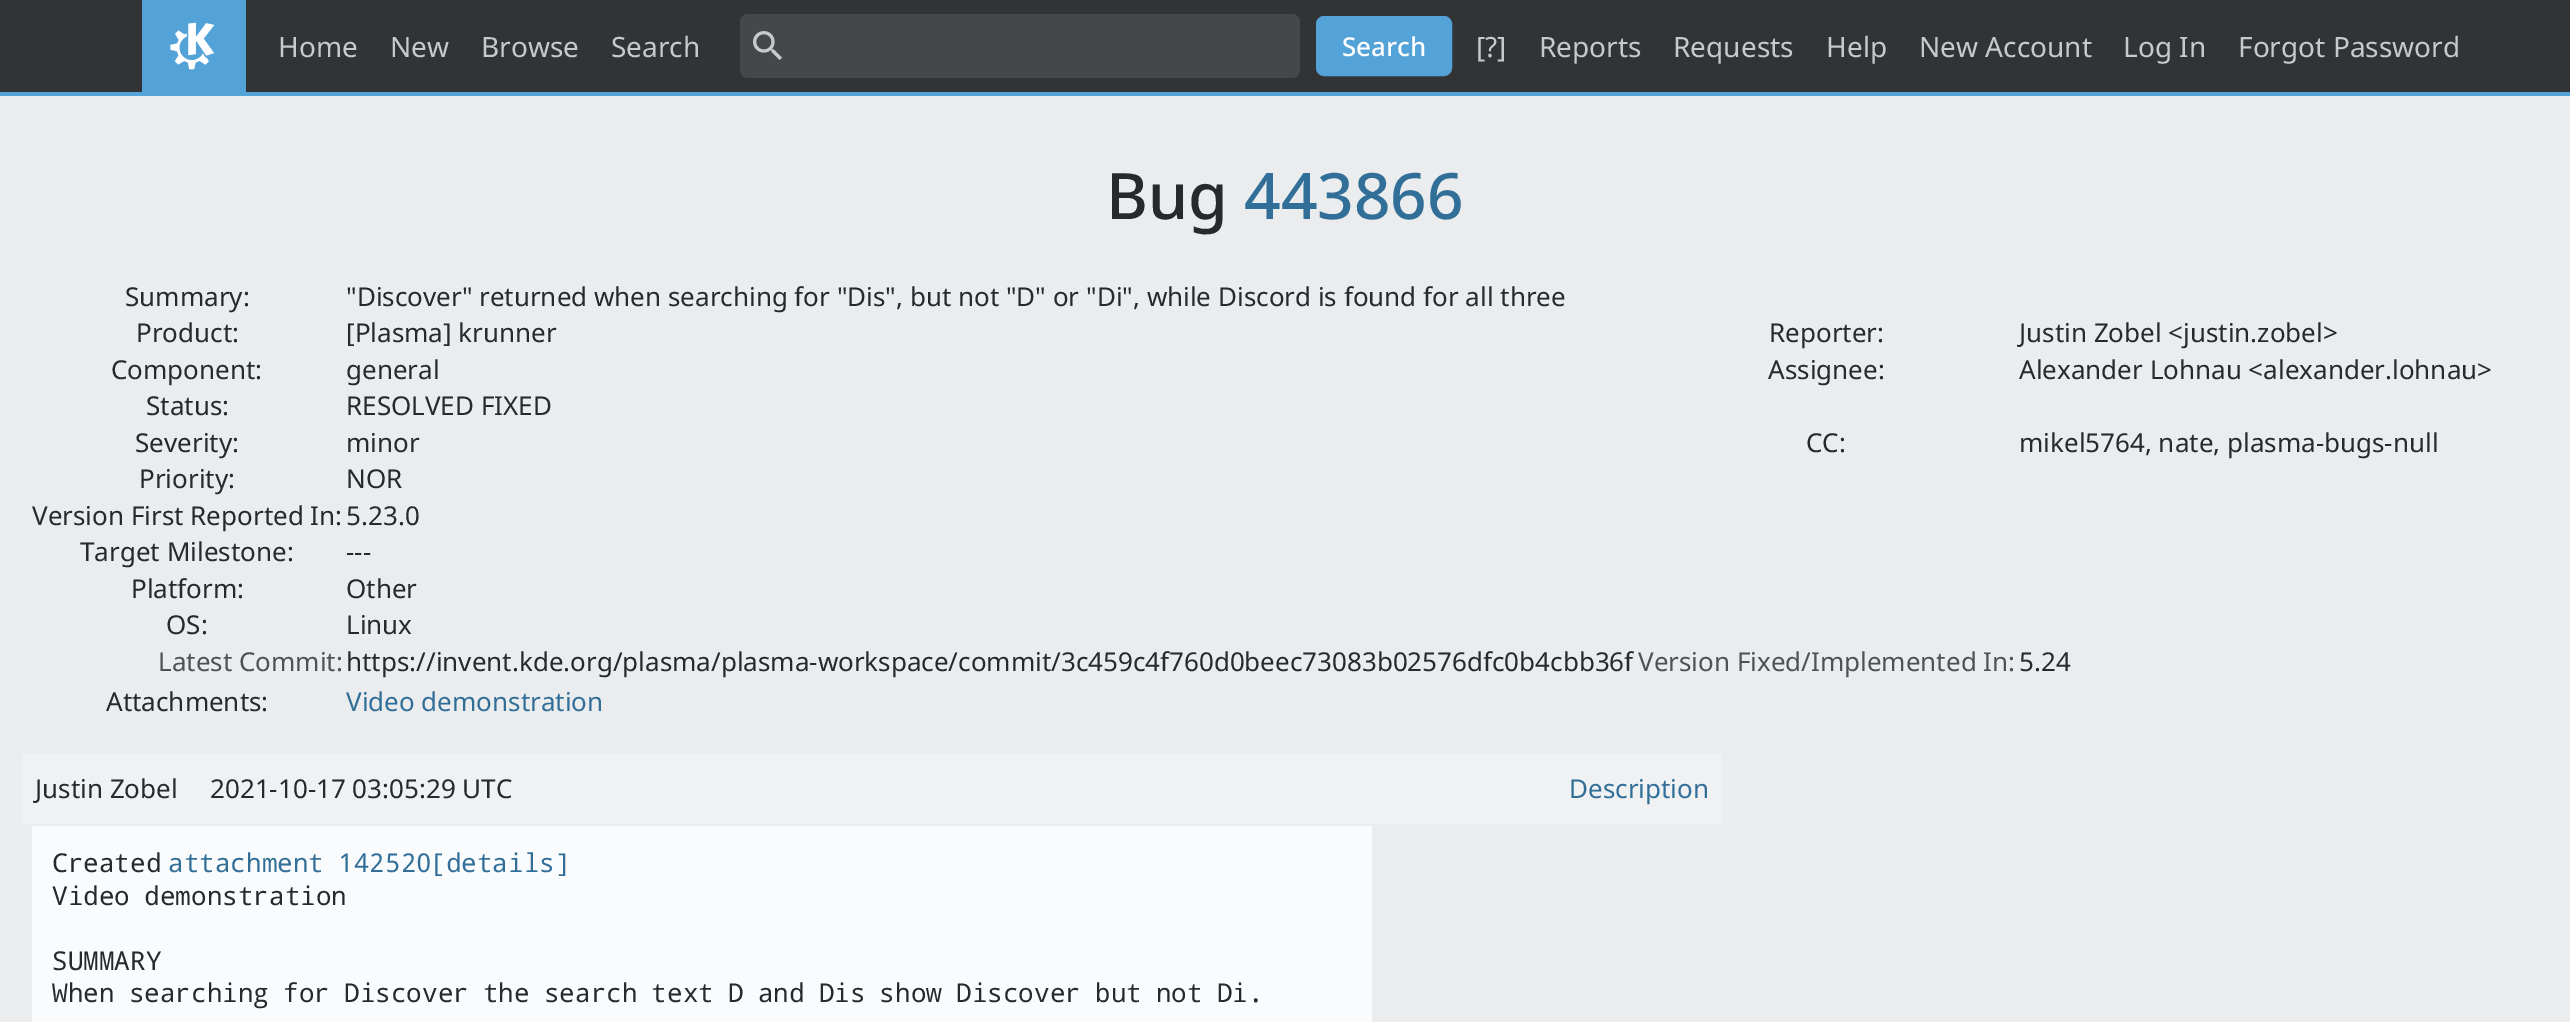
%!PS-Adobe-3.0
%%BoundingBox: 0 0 2570 1022
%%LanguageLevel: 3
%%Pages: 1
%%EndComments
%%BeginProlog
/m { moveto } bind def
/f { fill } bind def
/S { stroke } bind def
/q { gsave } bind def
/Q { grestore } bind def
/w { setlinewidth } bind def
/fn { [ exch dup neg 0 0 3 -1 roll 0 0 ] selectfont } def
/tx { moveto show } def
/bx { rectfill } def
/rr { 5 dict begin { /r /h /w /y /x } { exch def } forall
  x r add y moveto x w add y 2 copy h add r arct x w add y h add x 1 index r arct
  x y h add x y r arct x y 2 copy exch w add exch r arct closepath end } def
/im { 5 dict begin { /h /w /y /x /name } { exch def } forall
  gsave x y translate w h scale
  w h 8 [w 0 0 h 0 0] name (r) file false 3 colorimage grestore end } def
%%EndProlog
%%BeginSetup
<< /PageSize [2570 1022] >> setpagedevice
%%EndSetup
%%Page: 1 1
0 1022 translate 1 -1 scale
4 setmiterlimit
0.922 0.925 0.929 setrgbcolor
0 0 2570 1022 bx
0.196 0.2 0.204 setrgbcolor
0 0 2570 92 bx
0.329 0.639 0.847 setrgbcolor
0 92 2570 4 bx
142 0 104 92 bx
(image0.raw) 170 22 45 48 im
/NotoSans-Regular 28 fn
0.784 0.788 0.792 setrgbcolor
(Home) 278 57 tx
(New) 390 57 tx
(Browse) 481 57 tx
(Search) 611 57 tx
0.275 0.278 0.282 setrgbcolor
740 14 560 64 8 rr f
(image1.raw) 753 31 29 29 im
0.329 0.639 0.847 setrgbcolor
1317 17 134 58 7 rr q f Q
2 w
S
/NotoSans-Medium 26 fn
1 setgray
(Search) 1342 56 tx
/NotoSans-Regular 28 fn
0.784 0.788 0.792 setrgbcolor
([?]) 1476 57 tx
(Reports) 1539 57 tx
(Requests) 1673 57 tx
(Help) 1826 57 tx
(New Account) 1919 57 tx
(Log In) 2123 57 tx
(Forgot Password) 2238 57 tx
/NotoSans-Medium 64 fn
0.157 0.161 0.165 setrgbcolor
(Bug) 1106 219 tx
0.192 0.435 0.596 setrgbcolor
(443866) 1244 219 tx
/NotoSans-Regular 26 fn
0.157 0.161 0.165 setrgbcolor
(Summary:) 125 306 tx
("Discover" returned when searching for "Dis", but not "D" or "Di", while Discord is found for all three) 346 306 tx
(Product:) 136 342 tx
([Plasma] krunner) 346 342 tx
(Reporter:) 1769 342 tx
(Justin Zobel <justin.zobel>) 2019 342 tx
(Component:) 111 379 tx
(general) 346 379 tx
(Assignee:) 1768 379 tx
(Alexander Lohnau <alexander.lohnau>) 2019 379 tx
(Status:) 146 415 tx
(RESOLVED FIXED) 346 415 tx
(Severity:) 135 452 tx
(minor) 346 452 tx
(CC:) 1806 452 tx
(mikel5764, nate, plasma-bugs-null) 2019 452 tx
(Priority:) 139 488 tx
(NOR) 346 488 tx
(Version First Reported In:) 32 525 tx
(5.23.0) 346 525 tx
(Target Milestone:) 80 561 tx
(---) 346 561 tx
(Platform:) 131 598 tx
(Other) 346 598 tx
(OS:) 166 634 tx
(Linux) 346 634 tx
0.314 0.318 0.322 setrgbcolor
(Latest Commit:) 158 671 tx
0.157 0.161 0.165 setrgbcolor
(https://invent.kde.org/plasma/plasma-workspace/commit/3c459c4f760d0beec73083b02576dfc0b4cbb36f) 346 671 tx
0.314 0.318 0.322 setrgbcolor
(Version Fixed/Implemented In:) 1638 671 tx
0.157 0.161 0.165 setrgbcolor
(5.24) 2019 671 tx
(Attachments:) 106 711 tx
0.192 0.435 0.596 setrgbcolor
(Video demonstration) 346 711 tx
0.941 0.945 0.949 setrgbcolor
22 754 1700 70 bx
0.157 0.161 0.165 setrgbcolor
(Justin Zobel) 35 798 tx
(2021-10-17 03:05:29 UTC) 210 798 tx
0.192 0.435 0.596 setrgbcolor
(Description) 1569 798 tx
0.98 0.984 0.988 setrgbcolor
32 826 1340 196 bx
/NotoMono-Regular 26 fn
0.157 0.161 0.165 setrgbcolor
(Created) 52 872 tx
0.192 0.435 0.596 setrgbcolor
168 872 m -1.5 0 32 (attachment 142520) widthshow
([details]) 430 872 tx
0.157 0.161 0.165 setrgbcolor
52 905 m -1.5 0 32 (Video demonstration) widthshow
(SUMMARY) 52 970 tx
52 1002 m -1.5 0 32 (When searching for Discover the search text D and Dis show Discover but not Di.) widthshow
showpage
%%EOF
